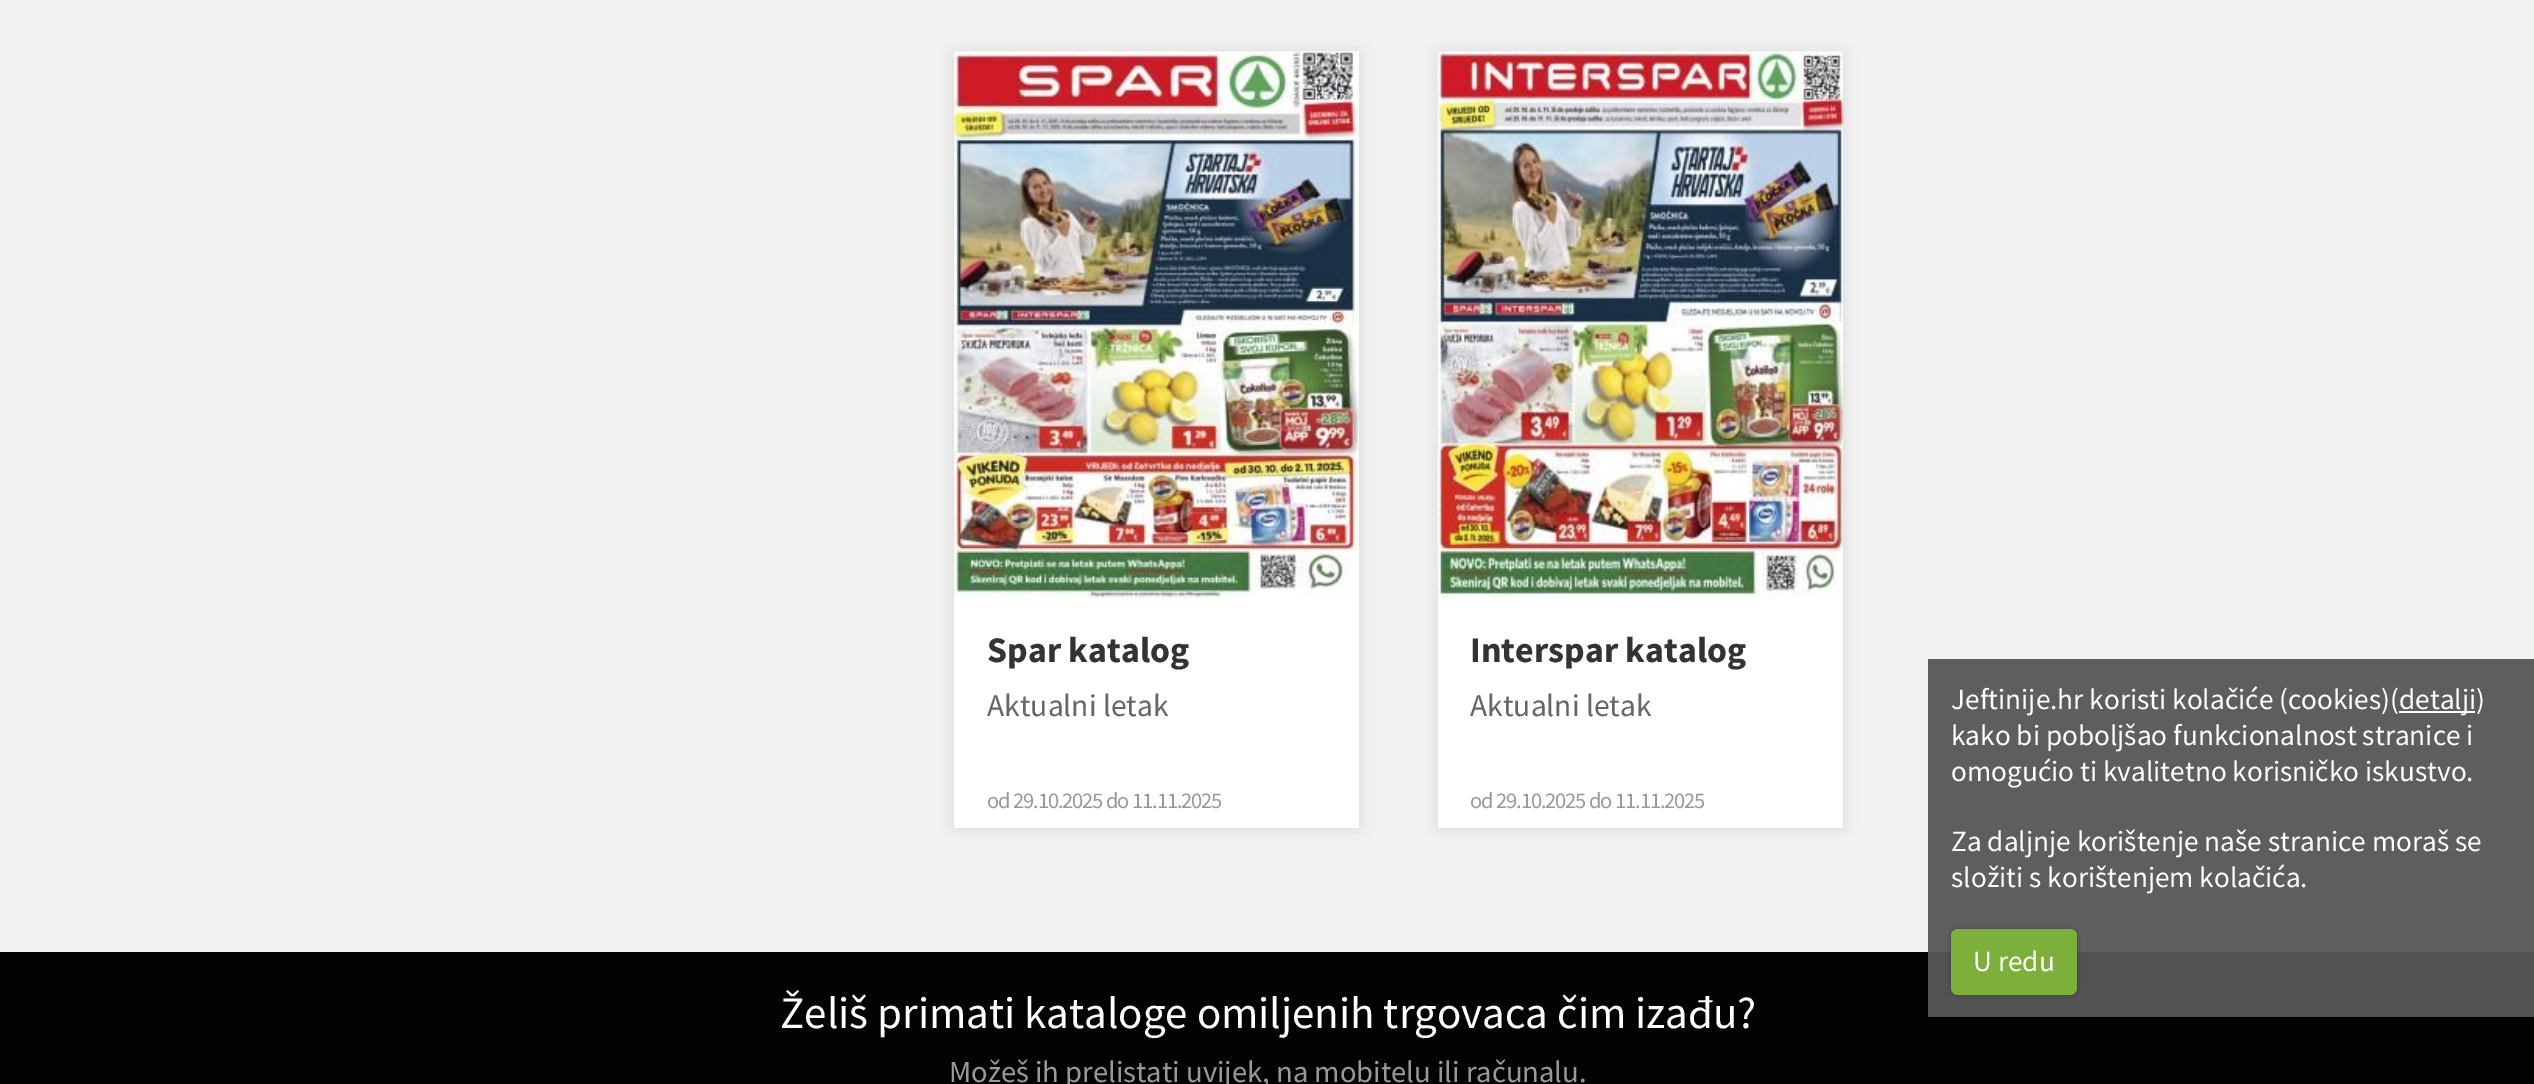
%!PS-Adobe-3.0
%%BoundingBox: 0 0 2534 1084
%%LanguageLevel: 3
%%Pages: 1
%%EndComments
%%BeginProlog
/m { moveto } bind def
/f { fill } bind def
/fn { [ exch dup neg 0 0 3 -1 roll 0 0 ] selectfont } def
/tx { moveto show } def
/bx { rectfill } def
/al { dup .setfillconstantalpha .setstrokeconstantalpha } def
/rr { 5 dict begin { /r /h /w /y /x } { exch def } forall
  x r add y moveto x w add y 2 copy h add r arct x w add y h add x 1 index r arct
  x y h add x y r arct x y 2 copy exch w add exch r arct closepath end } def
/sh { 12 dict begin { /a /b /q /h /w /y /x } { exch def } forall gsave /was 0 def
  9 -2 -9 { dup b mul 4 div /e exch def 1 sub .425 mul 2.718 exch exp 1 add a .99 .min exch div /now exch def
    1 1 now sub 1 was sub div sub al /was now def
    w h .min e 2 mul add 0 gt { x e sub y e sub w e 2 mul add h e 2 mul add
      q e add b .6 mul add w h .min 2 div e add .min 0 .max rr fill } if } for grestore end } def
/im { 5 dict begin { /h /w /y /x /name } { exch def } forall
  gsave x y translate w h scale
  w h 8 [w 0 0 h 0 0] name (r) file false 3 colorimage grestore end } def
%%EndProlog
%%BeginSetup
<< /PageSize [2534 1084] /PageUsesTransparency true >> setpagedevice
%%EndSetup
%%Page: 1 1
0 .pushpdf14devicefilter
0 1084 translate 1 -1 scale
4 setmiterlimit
0.949 setgray
0 0 2534 1084 bx
0.369 setgray
1928 659 606 293 bx
0 setgray
954 52 405 776 0 8 0.1 sh
1 setgray
954 598 405 230 bx
(image0.raw) 954 51 405 547 im
/SourceSansPro-Bold 36 fn
0.2 setgray
(Spar katalog) 987 662 tx
/SourceSansPro-Regular 31.5 fn
0.4 setgray
(Aktualni letak) 987 716 tx
/SourceSansPro-Regular 22.5 fn
0.6 setgray
987 808 m -1.1 0 (od 29.10.2025 do 11.11.2025) ashow
0 setgray
1438 52 405 776 0 8 0.1 sh
1 setgray
1438 52 405 776 bx
(image1.raw) 1437 51 406 547 im
/SourceSansPro-Bold 36 fn
0.2 setgray
(Interspar katalog) 1470 662 tx
/SourceSansPro-Regular 31.5 fn
0.4 setgray
(Aktualni letak) 1470 716 tx
/SourceSansPro-Regular 22.5 fn
0.6 setgray
1470 808 m -1.1 0 (od 29.10.2025 do 11.11.2025) ashow
0.012 setgray
0 952 2534 132 bx
0.322 setgray
1928 952 606 65 bx
/SourceSansPro-Regular 45 fn
1 setgray
(Želiš primati kataloge omiljenih trgovaca čim izađu?) 780 1028 tx
/SourceSansPro-Regular 30.6 fn
0.6 setgray
(Možeš ih prelistati uvijek, na mobitelu ili računalu.) 949 1082 tx
/SourceSansPro-Regular 29.25 fn
1 setgray
(Jeftinije.hr koristi kolačiće \(cookies\)\() 1951 709 tx
2399 711 76 2 bx
(detalji\)) 2399 709 tx
(kako bi poboljšao funkcionalnost stranice i) 1951 745 tx
(omogućio ti kvalitetno korisničko iskustvo.) 1951 781 tx
(Za daljnje korištenje naše stranice moraš se) 1951 851 tx
(složiti s korištenjem kolačića.) 1951 887 tx
0 setgray
1951 929 126 66 7 2 0.25 sh
0.49 0.686 0.231 setrgbcolor
1951 929 126 66 7 rr f
1 setgray
(U redu) 1973 971 tx
.poppdf14devicefilter showpage
%%EOF
